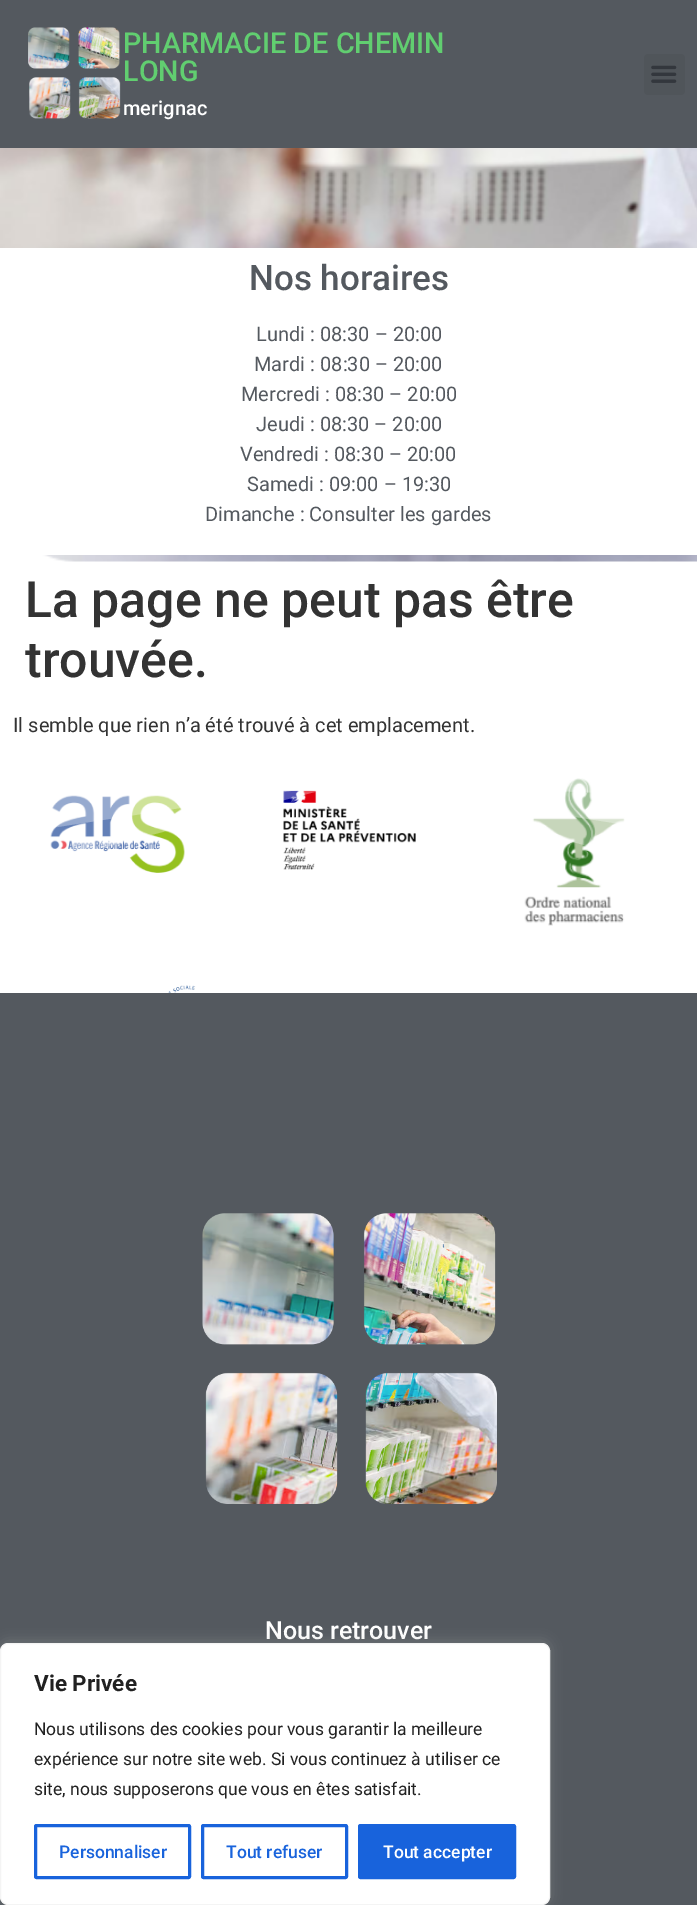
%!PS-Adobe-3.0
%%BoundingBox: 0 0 697 1905
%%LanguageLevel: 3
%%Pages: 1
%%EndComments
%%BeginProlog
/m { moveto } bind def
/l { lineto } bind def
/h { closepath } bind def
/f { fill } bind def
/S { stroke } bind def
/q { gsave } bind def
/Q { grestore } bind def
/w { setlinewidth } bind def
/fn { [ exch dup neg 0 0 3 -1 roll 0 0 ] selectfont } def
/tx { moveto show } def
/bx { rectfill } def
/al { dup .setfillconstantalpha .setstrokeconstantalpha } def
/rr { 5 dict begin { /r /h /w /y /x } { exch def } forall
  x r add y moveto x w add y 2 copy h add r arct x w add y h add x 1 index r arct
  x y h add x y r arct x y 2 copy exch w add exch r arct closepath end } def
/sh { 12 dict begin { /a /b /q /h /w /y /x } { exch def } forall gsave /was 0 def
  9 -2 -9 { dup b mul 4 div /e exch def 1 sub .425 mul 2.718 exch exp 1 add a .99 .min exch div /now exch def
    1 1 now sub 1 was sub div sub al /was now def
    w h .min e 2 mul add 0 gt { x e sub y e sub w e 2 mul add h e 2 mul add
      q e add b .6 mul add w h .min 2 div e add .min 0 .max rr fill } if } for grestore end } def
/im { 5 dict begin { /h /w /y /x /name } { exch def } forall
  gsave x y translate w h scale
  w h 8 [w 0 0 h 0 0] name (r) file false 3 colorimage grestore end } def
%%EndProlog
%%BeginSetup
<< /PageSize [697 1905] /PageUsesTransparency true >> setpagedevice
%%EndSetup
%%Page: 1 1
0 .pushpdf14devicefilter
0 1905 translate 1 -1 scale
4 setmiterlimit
1 setgray
0 0 697 1905 bx
0.329 0.349 0.373 setrgbcolor
0 0 697 148 bx
(image0.raw) 28 27 93 92 im
/Roboto-Medium 28.75 fn
0.38 0.808 0.439 setrgbcolor
(PHARMACIE DE CHEMIN) 123 53 tx
(LONG) 123 81 tx
/Roboto-Medium 20 fn
1 setgray
(merignac) 123 115 tx
0.314 0.333 0.353 setrgbcolor
644 54 41 41 4 rr f
(image1.raw) 651 65 26 18 im
(image2.raw) 0 148 697 414 im
1 setgray
0 248 697 307 bx
/Roboto-Medium 35 fn
0.329 0.349 0.373 setrgbcolor
(Nos horaires) 249 290 tx
/Roboto-Regular 20 fn
(Lundi : 08:30 – 20:00) 256 341 tx
(Mardi : 08:30 – 20:00) 254 371 tx
(Mercredi : 08:30 – 20:00) 241 401 tx
(Jeudi : 08:30 – 20:00) 256 431 tx
(Vendredi : 08:30 – 20:00) 240 461 tx
(Samedi : 09:00 – 19:30) 247 491 tx
(Dimanche : Consulter les gardes) 205 521 tx
/Roboto-Medium 50 fn
0.2 setgray
(La page ne peut pas être) 25 617 tx
(trouvée.) 25 677 tx
/Roboto-Regular 20 fn
(Il semble que rien n’a été trouvé à cet emplacement.) 13 732 tx
(image3.raw) 50 795 135 78 im
(image4.raw) 283 790 133 80 im
(image5.raw) 524 778 101 148 im
0.33 al
1 setgray
-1 758 m -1 875 l 349 783 l 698 875 l 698 758 l h f
-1 758 m -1 836 l 349 782 l 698 836 l 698 758 l h f
-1 758 m -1 797 l 349 782 l 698 797 l 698 758 l h f
1 al
(image6.raw) 158 985 151 8 im
0.329 0.349 0.373 setrgbcolor
0 993 697 912 bx
(image7.raw) 202 1213 295 291 im
/Roboto-Medium 25 fn
1 setgray
(Nous retrouver) 265 1639 tx
0.675 0.671 0.671 setrgbcolor
0 1641 550 263 8 6 0.3 sh
1 setgray
0.5 1643.5 549 261 7.5 rr q f Q
0.957 setgray
S
/Roboto-Bold 22.5 fn
0.129 setgray
(Vie Privée) 34 1691 tx
/Roboto-Regular 17.5 fn
(Nous utilisons des cookies pour vous garantir la meilleure) 34 1735 tx
(expérience sur notre site web. Si vous continuez à utiliser ce) 34 1765 tx
(site, nous supposerons que vous en êtes satisfait.) 34 1795 tx
0.094 0.388 0.863 setrgbcolor
3 w
35.5 1825.5 154 52 1 rr S
/Roboto-Medium 17.5 fn
(Personnaliser) 59 1858 tx
202.5 1825.5 144 52 1 rr S
(Tout refuser) 226 1858 tx
359.5 1825.5 155 52 1 rr q f Q
S
1 setgray
(Tout accepter) 383 1858 tx
.poppdf14devicefilter showpage
%%EOF
